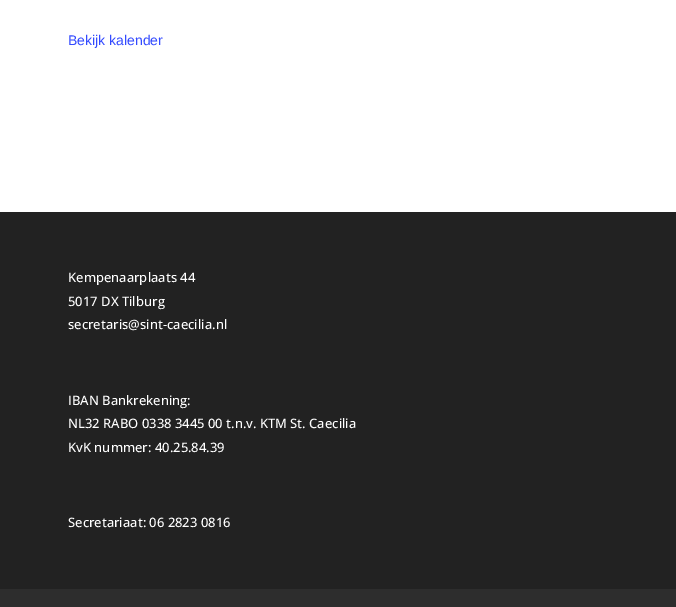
%!PS-Adobe-3.0
%%BoundingBox: 0 0 676 607
%%LanguageLevel: 3
%%Pages: 1
%%EndComments
%%BeginProlog
/fn { [ exch dup neg 0 0 3 -1 roll 0 0 ] selectfont } def
/tx { moveto show } def
/bx { rectfill } def
%%EndProlog
%%BeginSetup
<< /PageSize [676 607] >> setpagedevice
%%EndSetup
%%Page: 1 1
0 607 translate 1 -1 scale
4 setmiterlimit
1 setgray
0 0 676 607 bx
/LiberationSans-Regular 14 fn
0.2 0.29 1 setrgbcolor
(Bekijk kalender) 68 45 tx
0.133 setgray
0 212 676 377 bx
/OpenSans-Medium 13 fn
1 setgray
(Kempenaarplaats 44) 68 282 tx
(5017 DX Tilburg) 68 306 tx
(secretaris@sint-caecilia.nl) 68 329 tx
(IBAN Bankrekening:) 68 405 tx
(NL32 RABO 0338 3445 00 t.n.v. KTM St. Caecilia) 68 428 tx
(KvK nummer: 40.25.84.39) 68 452 tx
(Secretariaat: 06 2823 0816) 68 527 tx
0.176 setgray
0 589 676 18 bx
showpage
%%EOF
